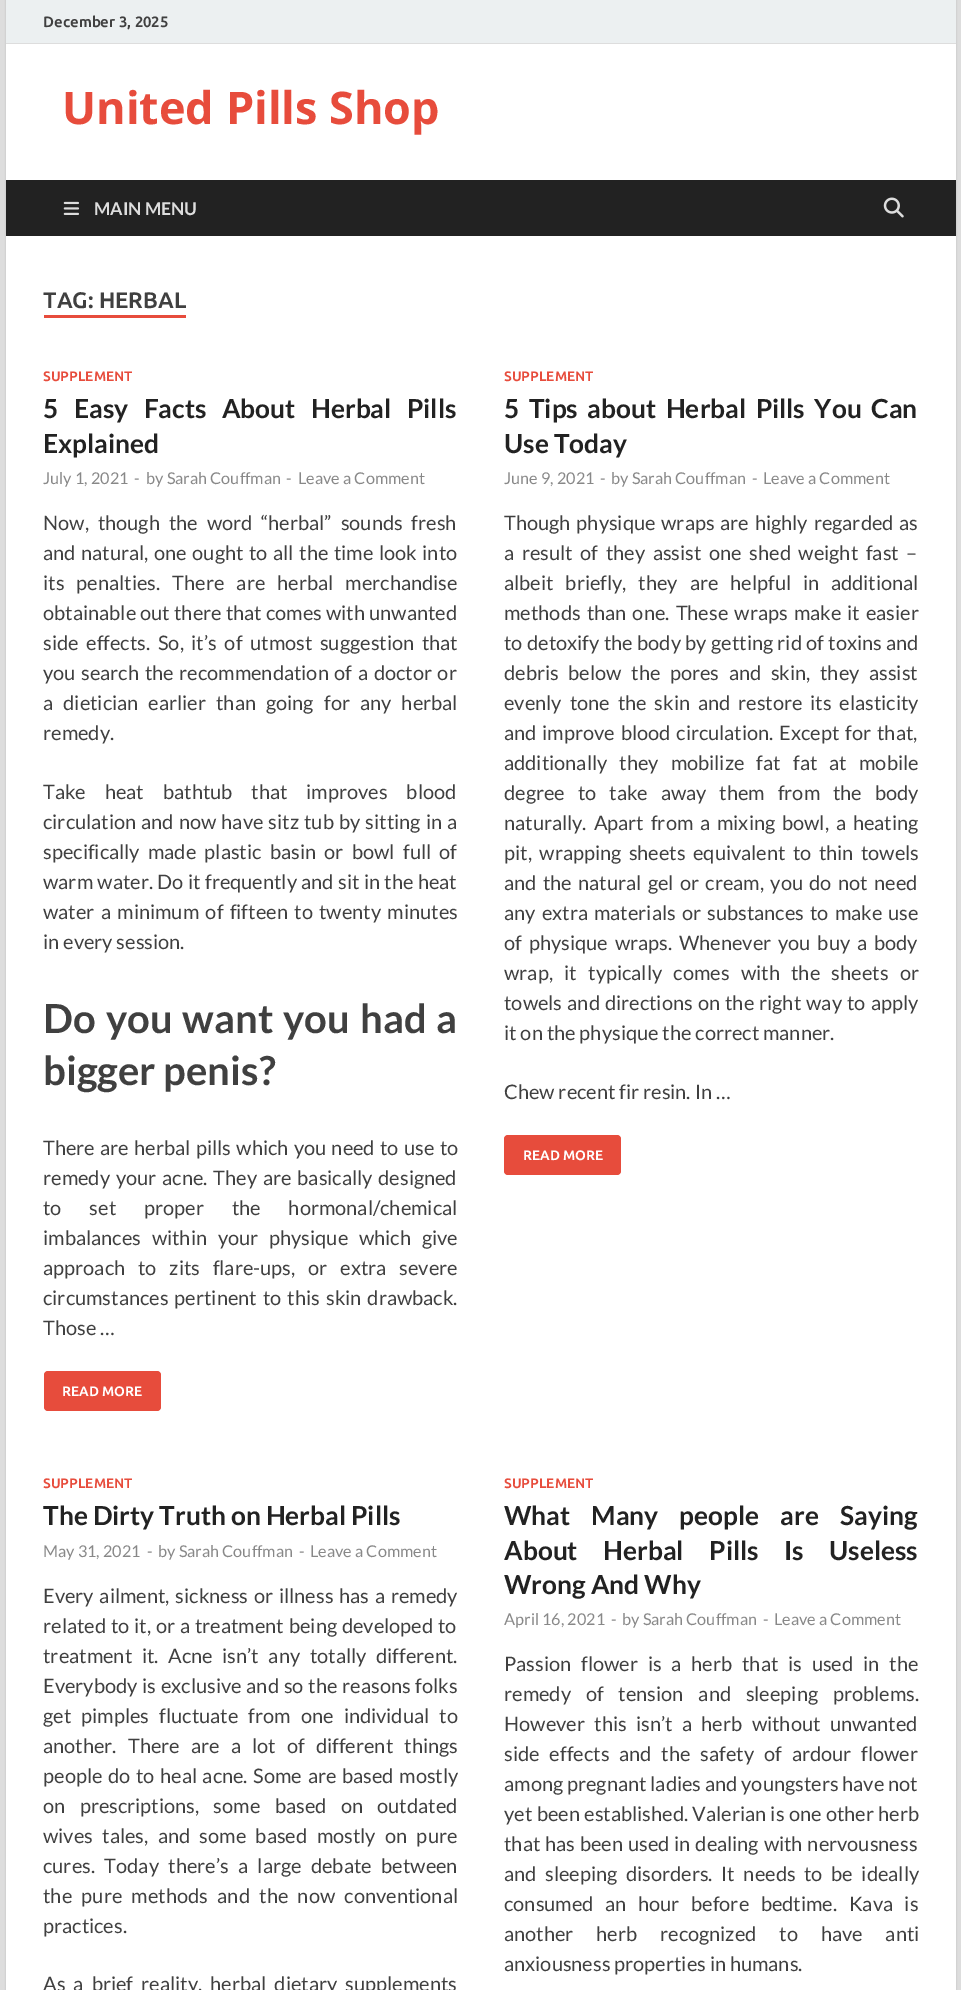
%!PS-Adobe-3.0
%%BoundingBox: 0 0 961 1990
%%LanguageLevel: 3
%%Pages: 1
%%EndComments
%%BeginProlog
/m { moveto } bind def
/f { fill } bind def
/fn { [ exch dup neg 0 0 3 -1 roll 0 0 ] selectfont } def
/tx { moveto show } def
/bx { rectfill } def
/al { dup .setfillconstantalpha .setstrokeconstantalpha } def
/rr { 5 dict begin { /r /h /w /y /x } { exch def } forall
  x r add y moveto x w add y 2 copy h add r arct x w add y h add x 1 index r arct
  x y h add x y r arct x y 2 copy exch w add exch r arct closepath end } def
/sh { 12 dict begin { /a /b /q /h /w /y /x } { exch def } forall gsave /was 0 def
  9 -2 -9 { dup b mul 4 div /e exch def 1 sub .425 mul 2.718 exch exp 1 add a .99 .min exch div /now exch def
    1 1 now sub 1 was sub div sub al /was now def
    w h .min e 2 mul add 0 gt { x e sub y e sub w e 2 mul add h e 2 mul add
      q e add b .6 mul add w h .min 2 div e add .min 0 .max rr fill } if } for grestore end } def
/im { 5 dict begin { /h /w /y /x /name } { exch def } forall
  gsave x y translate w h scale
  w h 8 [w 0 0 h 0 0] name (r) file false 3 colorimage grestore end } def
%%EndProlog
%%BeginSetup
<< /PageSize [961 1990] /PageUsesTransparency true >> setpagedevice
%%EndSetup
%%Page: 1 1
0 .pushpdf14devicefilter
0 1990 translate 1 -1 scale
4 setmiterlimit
0.867 setgray
0 0 961 1990 bx
0.733 setgray
6 0 950 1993 0 1 1 sh
1 setgray
6 44 950 1946 bx
0.925 0.941 0.945 setrgbcolor
6 0 950 43 bx
0.867 setgray
6 43 950 1 bx
/Ubuntu-Bold 15 fn
0.251 setgray
(December 3, 2025) 43 27 tx
/OpenSans-Bold 45 fn
0.906 0.298 0.235 setrgbcolor
(United Pills Shop) 62 124 tx
0.133 setgray
6 180 950 56 bx
(image0.raw) 63 201 17 14 im
/Lato-Bold 17.5 fn
0.867 setgray
(MAIN MENU) 94 215 tx
(image1.raw) 883 197 21 21 im
/Ubuntu-Bold 22.5 fn
0.251 setgray
(TAG: HERBAL) 43 308 tx
0.906 0.298 0.235 setrgbcolor
44 315 142 3 bx
/Ubuntu-Bold 13.75 fn
(SUPPLEMENT) 43 381 tx
/Lato-Bold 26.25 fn
0.133 setgray
43 418 m 10.5 0 32 (5 Easy Facts About Herbal Pills) widthshow
(Explained) 43 453 tx
/Lato-Regular 16.25 fn
0.533 setgray
(July 1, 2021) 43 484 tx
(-) 134 484 tx
(by Sarah Couffman) 146 484 tx
(-) 286 484 tx
(Leave a Comment) 298 484 tx
/Lato-Regular 20 fn
0.251 setgray
43 530 m 5 0 32 (Now, though the word “herbal” sounds fresh) widthshow
43 560 m 1.75 0 32 (and natural, one ought to all the time look into) widthshow
43 590 m 8.25 0 32 (its penalties. There are herbal merchandise) widthshow
43 620 m 0.25 0 32 (obtainable out there that comes with unwanted) widthshow
43 650 m 3.75 0 32 (side effects. So, it’s of utmost suggestion that) widthshow
43 680 m 1.75 0 32 (you search the recommendation of a doctor or) widthshow
43 710 m 6.25 0 32 (a dietician earlier than going for any herbal) widthshow
(remedy.) 43 740 tx
43 799 m 15 0 32 (Take heat bathtub that improves blood) widthshow
43 829 m 1.25 0 32 (circulation and now have sitz tub by sitting in a) widthshow
43 859 m 4.5 0 32 (specifically made plastic basin or bowl full of) widthshow
43 889 m 0.5 0 32 (warm water. Do it frequently and sit in the heat) widthshow
43 919 m 2.5 0 32 (water a minimum of fifteen to twenty minutes) widthshow
(in every session.) 43 949 tx
/Lato-Bold 40 fn
43 1033 m 2.25 0 32 (Do you want you had a) widthshow
(bigger penis?) 43 1085 tx
/Lato-Regular 20 fn
43 1155 m 1.5 0 32 (There are herbal pills which you need to use to) widthshow
43 1185 m 2 0 32 (remedy your acne. They are basically designed) widthshow
43 1215 m 24 0 32 (to set proper the hormonal/chemical) widthshow
43 1245 m 7 0 32 (imbalances within your physique which give) widthshow
43 1275 m 9 0 32 (approach to zits flare-ups, or extra severe) widthshow
43 1305 m 2.25 0 32 (circumstances pertinent to this skin drawback.) widthshow
(Those …) 43 1335 tx
0.906 0.298 0.235 setrgbcolor
44 1371 117 40 4 rr f
/Ubuntu-Bold 13.75 fn
1 setgray
(READ MORE) 62 1396 tx
0.906 0.298 0.235 setrgbcolor
(SUPPLEMENT) 504 381 tx
/Lato-Bold 26.25 fn
0.133 setgray
504 418 m 4.5 0 32 (5 Tips about Herbal Pills You Can) widthshow
(Use Today) 504 453 tx
/Lato-Regular 16.25 fn
0.533 setgray
(June 9, 2021) 504 484 tx
(-) 600 484 tx
(by Sarah Couffman) 611 484 tx
(-) 752 484 tx
(Leave a Comment) 763 484 tx
/Lato-Regular 20 fn
0.251 setgray
504 530 m 2 0 32 (Though physique wraps are highly regarded as) widthshow
504 560 m 3.75 0 32 (a result of they assist one shed weight fast –) widthshow
504 590 m 8 0 32 (albeit briefly, they are helpful in additional) widthshow
504 620 m 2.25 0 32 (methods than one. These wraps make it easier) widthshow
504 650 m 0.5 0 32 (to detoxify the body by getting rid of toxins and) widthshow
504 680 m 5.75 0 32 (debris below the pores and skin, they assist) widthshow
504 710 m 4 0 32 (evenly tone the skin and restore its elasticity) widthshow
504 740 m 2 0 32 (and improve blood circulation. Except for that,) widthshow
504 770 m 8.25 0 32 (additionally they mobilize fat fat at mobile) widthshow
504 800 m 9 0 32 (degree to take away them from the body) widthshow
504 830 m 3 0 32 (naturally. Apart from a mixing bowl, a heating) widthshow
504 860 m 3.5 0 32 (pit, wrapping sheets equivalent to thin towels) widthshow
504 890 m 2.5 0 32 (and the natural gel or cream, you do not need) widthshow
504 920 m 2.25 0 32 (any extra materials or substances to make use) widthshow
504 950 m 3 0 32 (of physique wraps. Whenever you buy a body) widthshow
504 980 m 7.5 0 32 (wrap, it typically comes with the sheets or) widthshow
504 1010 m 1.25 0 32 (towels and directions on the right way to apply) widthshow
(it on the physique the correct manner.) 504 1040 tx
(Chew recent fir resin. In …) 504 1099 tx
0.906 0.298 0.235 setrgbcolor
504 1135 117 40 4 rr f
/Ubuntu-Bold 13.75 fn
1 setgray
(READ MORE) 523 1160 tx
0.906 0.298 0.235 setrgbcolor
(SUPPLEMENT) 43 1488 tx
/Lato-Bold 26.25 fn
0.133 setgray
(The Dirty Truth on Herbal Pills) 43 1525 tx
/Lato-Regular 16.25 fn
0.533 setgray
(May 31, 2021) 43 1557 tx
(-) 147 1557 tx
(by Sarah Couffman) 158 1557 tx
(-) 299 1557 tx
(Leave a Comment) 310 1557 tx
/Lato-Regular 20 fn
0.251 setgray
43 1603 m 2 0 32 (Every ailment, sickness or illness has a remedy) widthshow
43 1633 m 1 0 32 (related to it, or a treatment being developed to) widthshow
43 1663 m 5.75 0 32 (treatment it. Acne isn’t any totally different.) widthshow
43 1693 m 1 0 32 (Everybody is exclusive and so the reasons folks) widthshow
43 1723 m 6.25 0 32 (get pimples fluctuate from one individual to) widthshow
43 1753 m 7.25 0 32 (another. There are a lot of different things) widthshow
43 1783 m 1.75 0 32 (people do to heal acne. Some are based mostly) widthshow
43 1813 m 10.5 0 32 (on prescriptions, some based on outdated) widthshow
43 1843 m 5.5 0 32 (wives tales, and some based mostly on pure) widthshow
43 1873 m 5.5 0 32 (cures. Today there’s a large debate between) widthshow
43 1903 m 5.5 0 32 (the pure methods and the now conventional) widthshow
(practices.) 43 1933 tx
43 1991 m 4.25 0 32 (As a brief reality, herbal dietary supplements) widthshow
/Ubuntu-Bold 13.75 fn
0.906 0.298 0.235 setrgbcolor
(SUPPLEMENT) 504 1488 tx
/Lato-Bold 26.25 fn
0.133 setgray
504 1525 m 16 0 32 (What Many people are Saying) widthshow
504 1560 m 20.5 0 32 (About Herbal Pills Is Useless) widthshow
(Wrong And Why) 504 1594 tx
/Lato-Regular 16.25 fn
0.533 setgray
(April 16, 2021) 504 1625 tx
(-) 611 1625 tx
(by Sarah Couffman) 622 1625 tx
(-) 763 1625 tx
(Leave a Comment) 774 1625 tx
/Lato-Regular 20 fn
0.251 setgray
504 1671 m 6 0 32 (Passion flower is a herb that is used in the) widthshow
504 1701 m 11 0 32 (remedy of tension and sleeping problems.) widthshow
504 1731 m 5.5 0 32 (However this isn’t a herb without unwanted) widthshow
504 1761 m 6 0 32 (side effects and the safety of ardour flower) widthshow
(among pregnant ladies and youngsters have not) 504 1791 tx
504 1821 m 0.5 0 32 (yet been established. Valerian is one other herb) widthshow
504 1851 m 1 0 32 (that has been used in dealing with nervousness) widthshow
504 1881 m 4.75 0 32 (and sleeping disorders. It needs to be ideally) widthshow
504 1911 m 7.75 0 32 (consumed an hour before bedtime. Kava is) widthshow
504 1941 m 19 0 32 (another herb recognized to have anti) widthshow
(anxiousness properties in humans.) 504 1971 tx
.poppdf14devicefilter showpage
%%EOF
